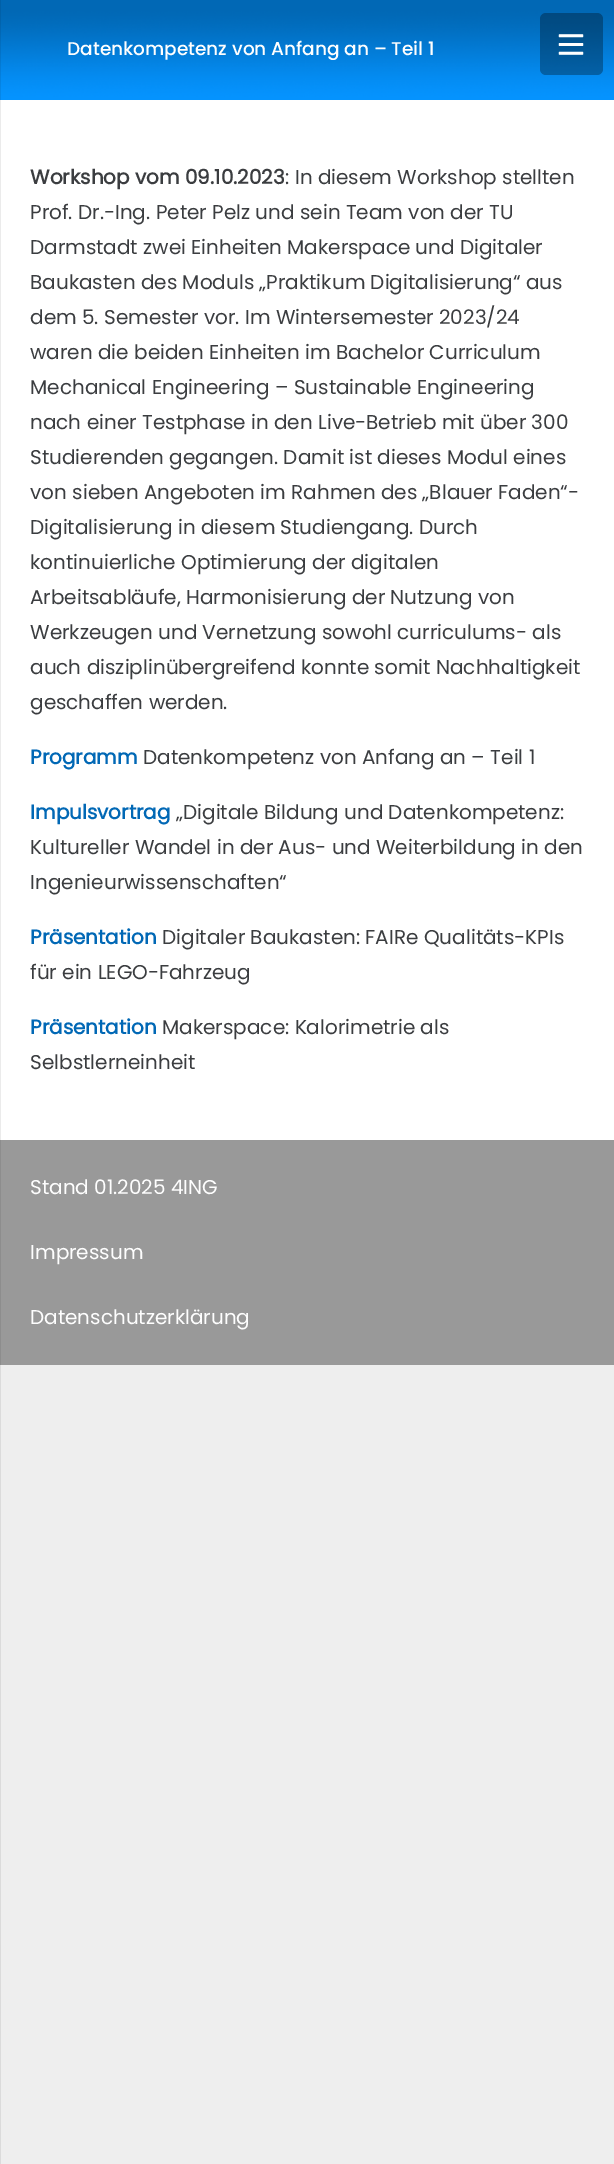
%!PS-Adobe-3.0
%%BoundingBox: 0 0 614 2164
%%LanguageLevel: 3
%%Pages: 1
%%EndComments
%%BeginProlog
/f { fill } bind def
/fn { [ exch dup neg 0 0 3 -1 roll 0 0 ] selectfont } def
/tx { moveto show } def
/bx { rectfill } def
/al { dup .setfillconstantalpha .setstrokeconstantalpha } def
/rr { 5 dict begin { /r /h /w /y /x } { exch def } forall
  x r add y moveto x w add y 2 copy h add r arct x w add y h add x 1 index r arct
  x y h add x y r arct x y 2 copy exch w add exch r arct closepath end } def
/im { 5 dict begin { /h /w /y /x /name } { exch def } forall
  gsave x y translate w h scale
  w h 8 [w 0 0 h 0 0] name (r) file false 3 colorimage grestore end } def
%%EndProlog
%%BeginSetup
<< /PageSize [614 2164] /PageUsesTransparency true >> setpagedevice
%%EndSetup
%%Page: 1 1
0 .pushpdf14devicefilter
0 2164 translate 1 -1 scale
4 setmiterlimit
0.933 setgray
0 0 614 2164 bx
(image1.raw) 0 0 614 100 im
0.3 al
0 setgray
540 13 63 62 6 rr f
1 al
(image0.raw) 558 34 26 21 im
1 setgray
0 100 614 1040 bx
0.6 setgray
0 1140 614 225 bx
0.08 al
0 setgray
0 0 1 2164 bx
/Poppins-Medium 18.5 fn
1 al
0.996 setgray
(Datenkompetenz von Anfang an – Teil 1) 67 55 tx
/Poppins-Bold 20 fn
0.231 0.239 0.251 setrgbcolor
(Workshop vom 09.10.2023) 30 184 tx
/Poppins-Regular 20 fn
(: In diesem Workshop stellten) 285 184 tx
(Prof. Dr.-Ing. Peter Pelz und sein Team von der TU) 30 219 tx
(Darmstadt zwei Einheiten Makerspace und Digitaler) 30 254 tx
(Baukasten des Moduls „Praktikum Digitalisierung“ aus) 30 289 tx
(dem 5. Semester vor. Im Wintersemester 2023/24) 30 324 tx
(waren die beiden Einheiten im Bachelor Curriculum) 30 359 tx
(Mechanical Engineering – Sustainable Engineering) 30 394 tx
(nach einer Testphase in den Live-Betrieb mit über 300) 30 429 tx
(Studierenden gegangen. Damit ist dieses Modul eines) 30 464 tx
(von sieben Angeboten im Rahmen des „Blauer Faden“-) 30 499 tx
(Digitalisierung in diesem Studiengang. Durch) 30 534 tx
(kontinuierliche Optimierung der digitalen) 30 569 tx
(Arbeitsabläufe, Harmonisierung der Nutzung von) 30 604 tx
(Werkzeugen und Vernetzung sowohl curriculums- als) 30 639 tx
(auch disziplinübergreifend konnte somit Nachhaltigkeit) 30 674 tx
(geschaffen werden.) 30 709 tx
/Poppins-Bold 20 fn
0.004 0.408 0.71 setrgbcolor
(Programm) 30 764 tx
/Poppins-Regular 20 fn
0.231 0.239 0.251 setrgbcolor
(Datenkompetenz von Anfang an – Teil 1) 143 764 tx
/Poppins-Bold 20 fn
0.004 0.408 0.71 setrgbcolor
(Impulsvortrag) 30 819 tx
/Poppins-Regular 20 fn
0.231 0.239 0.251 setrgbcolor
(„Digitale Bildung und Datenkompetenz:) 176 819 tx
(Kultureller Wandel in der Aus- und Weiterbildung in den) 30 854 tx
(Ingenieurwissenschaften“) 30 889 tx
/Poppins-Bold 20 fn
0.004 0.408 0.71 setrgbcolor
(Präsentation) 30 944 tx
/Poppins-Regular 20 fn
0.231 0.239 0.251 setrgbcolor
(Digitaler Baukasten: FAIRe Qualitäts-KPIs) 162 944 tx
(für ein LEGO-Fahrzeug) 30 979 tx
/Poppins-Bold 20 fn
0.004 0.408 0.71 setrgbcolor
(Präsentation) 30 1034 tx
/Poppins-Regular 20 fn
0.231 0.239 0.251 setrgbcolor
(Makerspace: Kalorimetrie als) 162 1034 tx
(Selbstlerneinheit) 30 1069 tx
0.996 setgray
(Stand 01.2025 4ING) 30 1194 tx
(Impressum) 30 1259 tx
(Datenschutzerklärung) 30 1324 tx
.poppdf14devicefilter showpage
%%EOF
